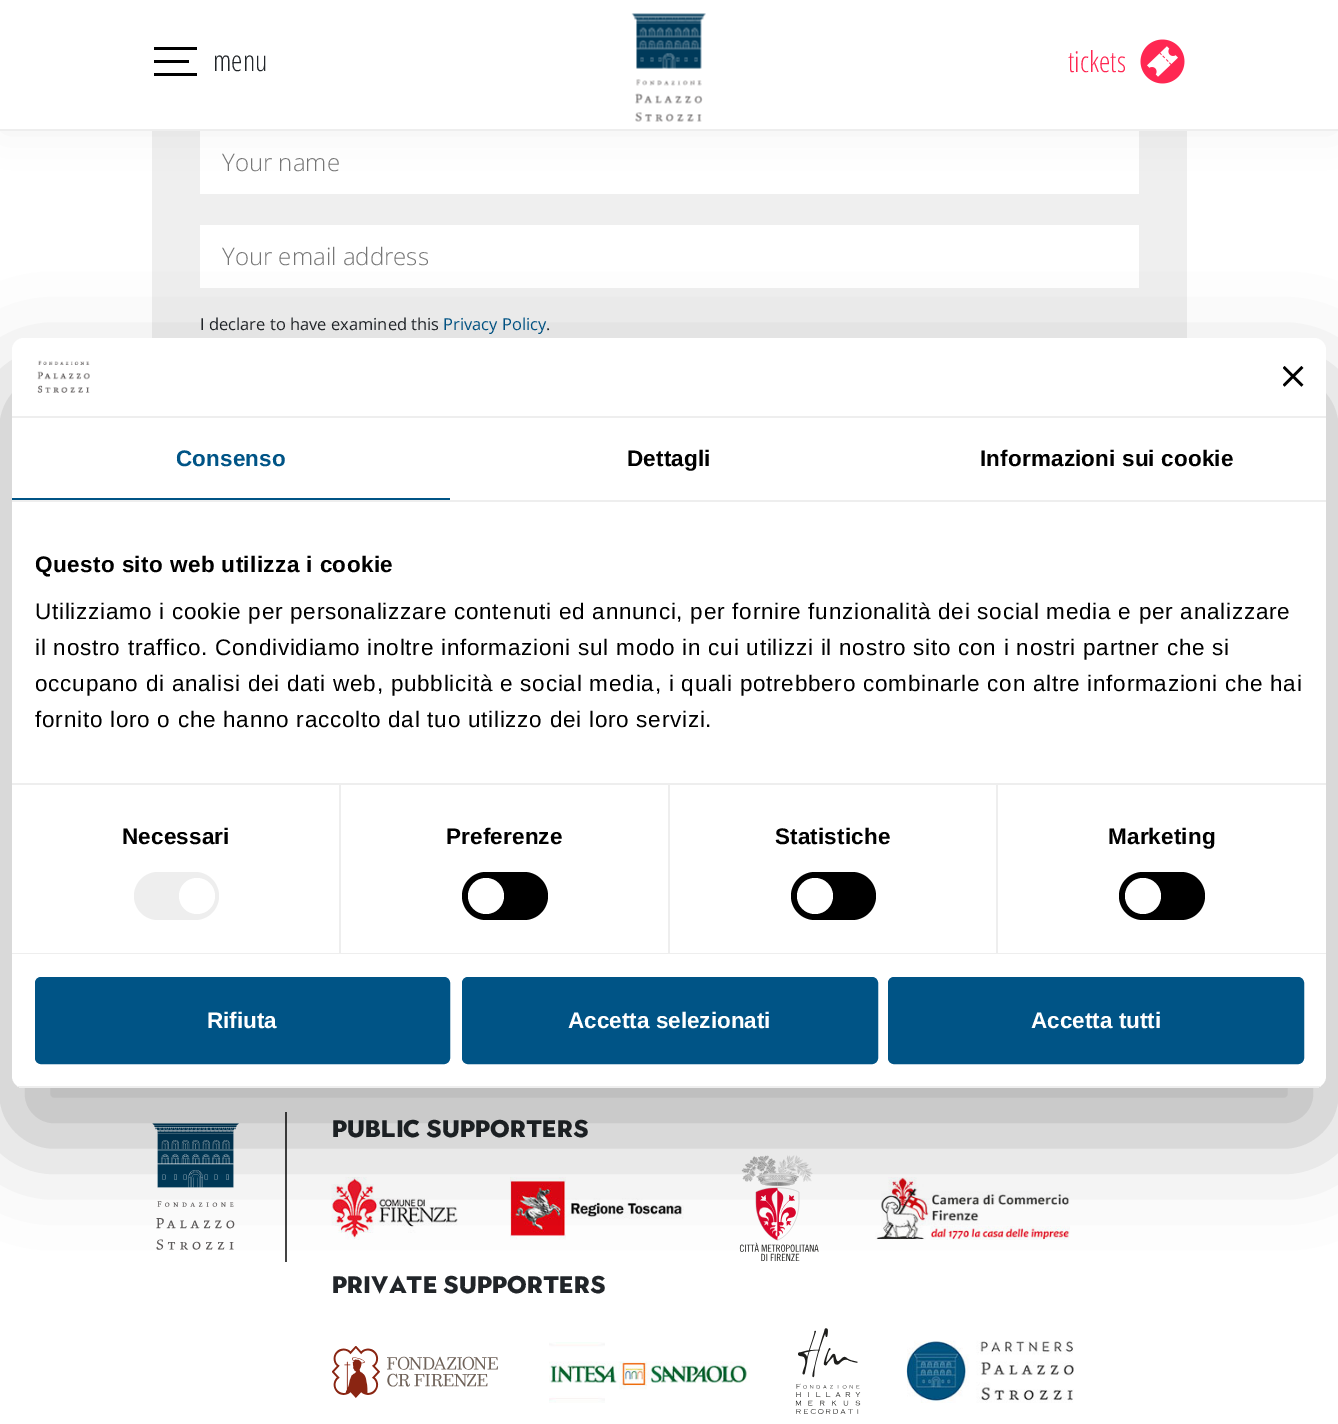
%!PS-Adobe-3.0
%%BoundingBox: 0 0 1338 1424
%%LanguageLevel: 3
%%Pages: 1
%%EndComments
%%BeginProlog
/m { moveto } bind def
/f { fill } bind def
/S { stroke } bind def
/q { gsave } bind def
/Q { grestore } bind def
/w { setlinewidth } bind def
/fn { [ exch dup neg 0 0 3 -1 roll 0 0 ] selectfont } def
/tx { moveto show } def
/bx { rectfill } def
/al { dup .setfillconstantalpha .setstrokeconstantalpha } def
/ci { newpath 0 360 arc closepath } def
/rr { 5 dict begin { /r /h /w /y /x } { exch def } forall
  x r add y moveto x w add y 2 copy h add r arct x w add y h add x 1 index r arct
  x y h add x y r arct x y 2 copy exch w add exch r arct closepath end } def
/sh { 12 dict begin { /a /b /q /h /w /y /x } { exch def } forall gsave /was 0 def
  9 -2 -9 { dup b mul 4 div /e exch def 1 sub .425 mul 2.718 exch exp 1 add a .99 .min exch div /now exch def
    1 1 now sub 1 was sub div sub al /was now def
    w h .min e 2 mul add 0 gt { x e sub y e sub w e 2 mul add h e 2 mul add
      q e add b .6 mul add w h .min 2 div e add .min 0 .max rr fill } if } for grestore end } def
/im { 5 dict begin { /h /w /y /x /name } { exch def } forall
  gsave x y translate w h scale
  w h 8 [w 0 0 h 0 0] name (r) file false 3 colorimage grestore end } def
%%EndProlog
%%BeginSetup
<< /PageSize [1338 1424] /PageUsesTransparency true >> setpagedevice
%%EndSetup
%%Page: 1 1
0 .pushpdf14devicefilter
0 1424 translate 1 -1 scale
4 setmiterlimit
1 setgray
0 0 1338 1424 bx
0.937 setgray
152 131 1035 207 bx
1 setgray
200 131 939 63 bx
0 setgray
0 0 1338 131 0 22.5 0.05 sh
1 setgray
0 0 1338 129 bx
0.933 setgray
0 129 1338 2 bx
0 setgray
154 73 43 3 bx
154 60 35 3 bx
154 47 43 3 bx
/OpenSansCondensed-Light 29 fn
0.129 0.145 0.161 setrgbcolor
(menu) 213 71 tx
(image0.raw) 631 13 75 109 im
1 0.153 0.322 setrgbcolor
(tickets) 1068 72 tx
(image1.raw) 1140 39 45 45 im
/OpenSans-Light 24 fn
0.459 setgray
(Your name) 222 171 tx
1 setgray
200 225 939 63 bx
0.459 setgray
(Your email address) 222 265 tx
/OpenSans-Regular 16.5 fn
0.129 0.145 0.161 setrgbcolor
(I declare to have examined this) 200 330 tx
0 0.329 0.525 setrgbcolor
(Privacy Policy) 443 330 tx
0.129 0.145 0.161 setrgbcolor
(.) 546 330 tx
(image2.raw) 152 1123 87 127 im
0.267 setgray
285 1112 2 150 bx
/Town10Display-Black 24 fn
0.129 0.145 0.161 setrgbcolor
(Public supporters) 332 1137 tx
(image3.raw) 331 1177 127 63 im
(image4.raw) 510 1177 174 63 im
(image5.raw) 739 1155 80 107 im
(image6.raw) 875 1177 195 63 im
(Private supporters) 332 1293 tx
(image7.raw) 332 1346 166 52 im
(image8.raw) 549 1342 201 61 im
(image9.raw) 795 1328 66 86 im
(image10.raw) 906 1340 168 63 im
0 setgray
12 386 1314 750 12 51 0.3 sh
1 setgray
12 338 1314 750 12 rr f
0.933 setgray
12 416 1314 2 bx
(image11.raw) 37 360 53 33 im
(image12.raw) 1283 366 21 21 im
12 500 1314 2 bx
0 0.329 0.525 setrgbcolor
12 498 438 2 bx
/LiberationSans-Bold 22.5 fn
176 466 m 0.15 0 (Consenso) ashow
0 setgray
627 466 m 0.15 0 (Dettagli) ashow
980 466 m 0.15 0 (Informazioni sui cookie) ashow
0.933 setgray
12 783 1314 2 bx
0 setgray
35 572 m 0.4 0 (Questo sito web utilizza i cookie) ashow
/LiberationSans-Regular 22.5 fn
35 619 m 0.75 0 (Utilizziamo i cookie per personalizzare contenuti ed annunci, per fornire funzionalità dei social media e per analizzare) ashow
35 655 m 0.75 0 (il nostro traffico. Condividiamo inoltre informazioni sul modo in cui utilizzi il nostro sito con i nostri partner che si) ashow
35 691 m 0.75 0 (occupano di analisi dei dati web, pubblicità e social media, i quali potrebbero combinarle con altre informazioni che hai) ashow
35 727 m 0.75 0 (fornito loro o che hanno raccolto dal tuo utilizzo dei loro servizi.) ashow
0.933 setgray
12 953 1314 1 bx
339 785 2 168 bx
/LiberationSans-Bold 22.5 fn
0 setgray
122 844 m 0.15 0 (Necessari) ashow
0.933 setgray
134 872 85 48 24 rr f
1 setgray
197 896 18 ci f
0.933 setgray
668 785 2 168 bx
0 setgray
446 844 m 0.15 0 (Preferenze) ashow
462 872 86 48 24 rr f
1 setgray
486 896 18 ci f
0.933 setgray
996 785 2 168 bx
0 setgray
775 844 m 0.15 0 (Statistiche) ashow
791 872 85 48 24 rr f
1 setgray
815 896 18 ci f
0 setgray
1108 844 m 0.15 0 (Marketing) ashow
1119 872 86 48 24 rr f
1 setgray
1143 896 18 ci f
q
12 338 1314 750 12 rr clip newpath
0.933 setgray
12 1086 1314 2 bx
Q
0 0.329 0.525 setrgbcolor
36.5 978.5 412 84 4.5 rr q f Q
3 w
S
1 setgray
(Rifiuta) 207 1028 tx
0 0.329 0.525 setrgbcolor
463.5 978.5 413 84 4.5 rr q f Q
S
1 setgray
(Accetta selezionati) 568 1028 tx
0 0.329 0.525 setrgbcolor
889.5 978.5 413 84 4.5 rr q f Q
S
1 setgray
(Accetta tutti) 1031 1028 tx
.poppdf14devicefilter showpage
%%EOF
